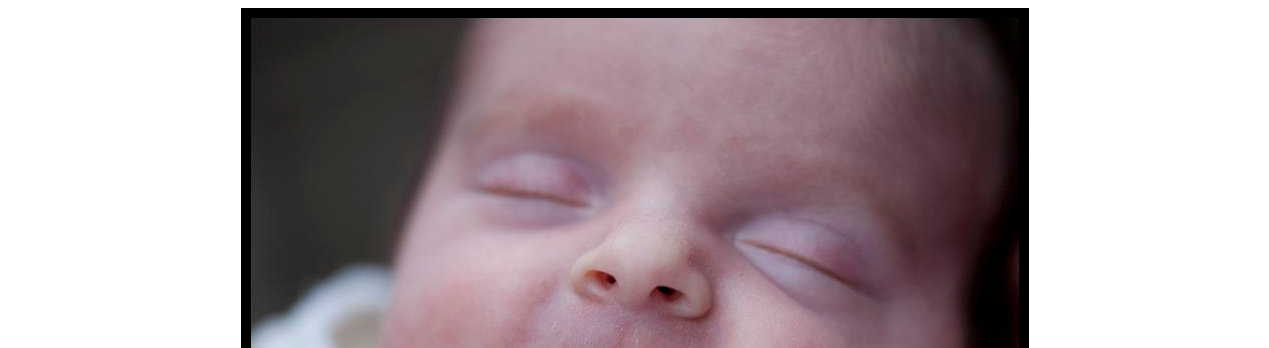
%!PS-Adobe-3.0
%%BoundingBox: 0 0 1269 348
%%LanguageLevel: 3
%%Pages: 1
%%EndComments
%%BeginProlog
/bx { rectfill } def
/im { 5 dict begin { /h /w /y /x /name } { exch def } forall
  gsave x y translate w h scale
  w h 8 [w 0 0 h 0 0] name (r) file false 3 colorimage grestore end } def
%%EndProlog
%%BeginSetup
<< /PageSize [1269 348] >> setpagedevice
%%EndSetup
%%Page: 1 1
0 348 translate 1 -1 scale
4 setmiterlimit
1 setgray
0 0 1269 348 bx
(image0.raw) 241 8 788 340 im
showpage
%%EOF
